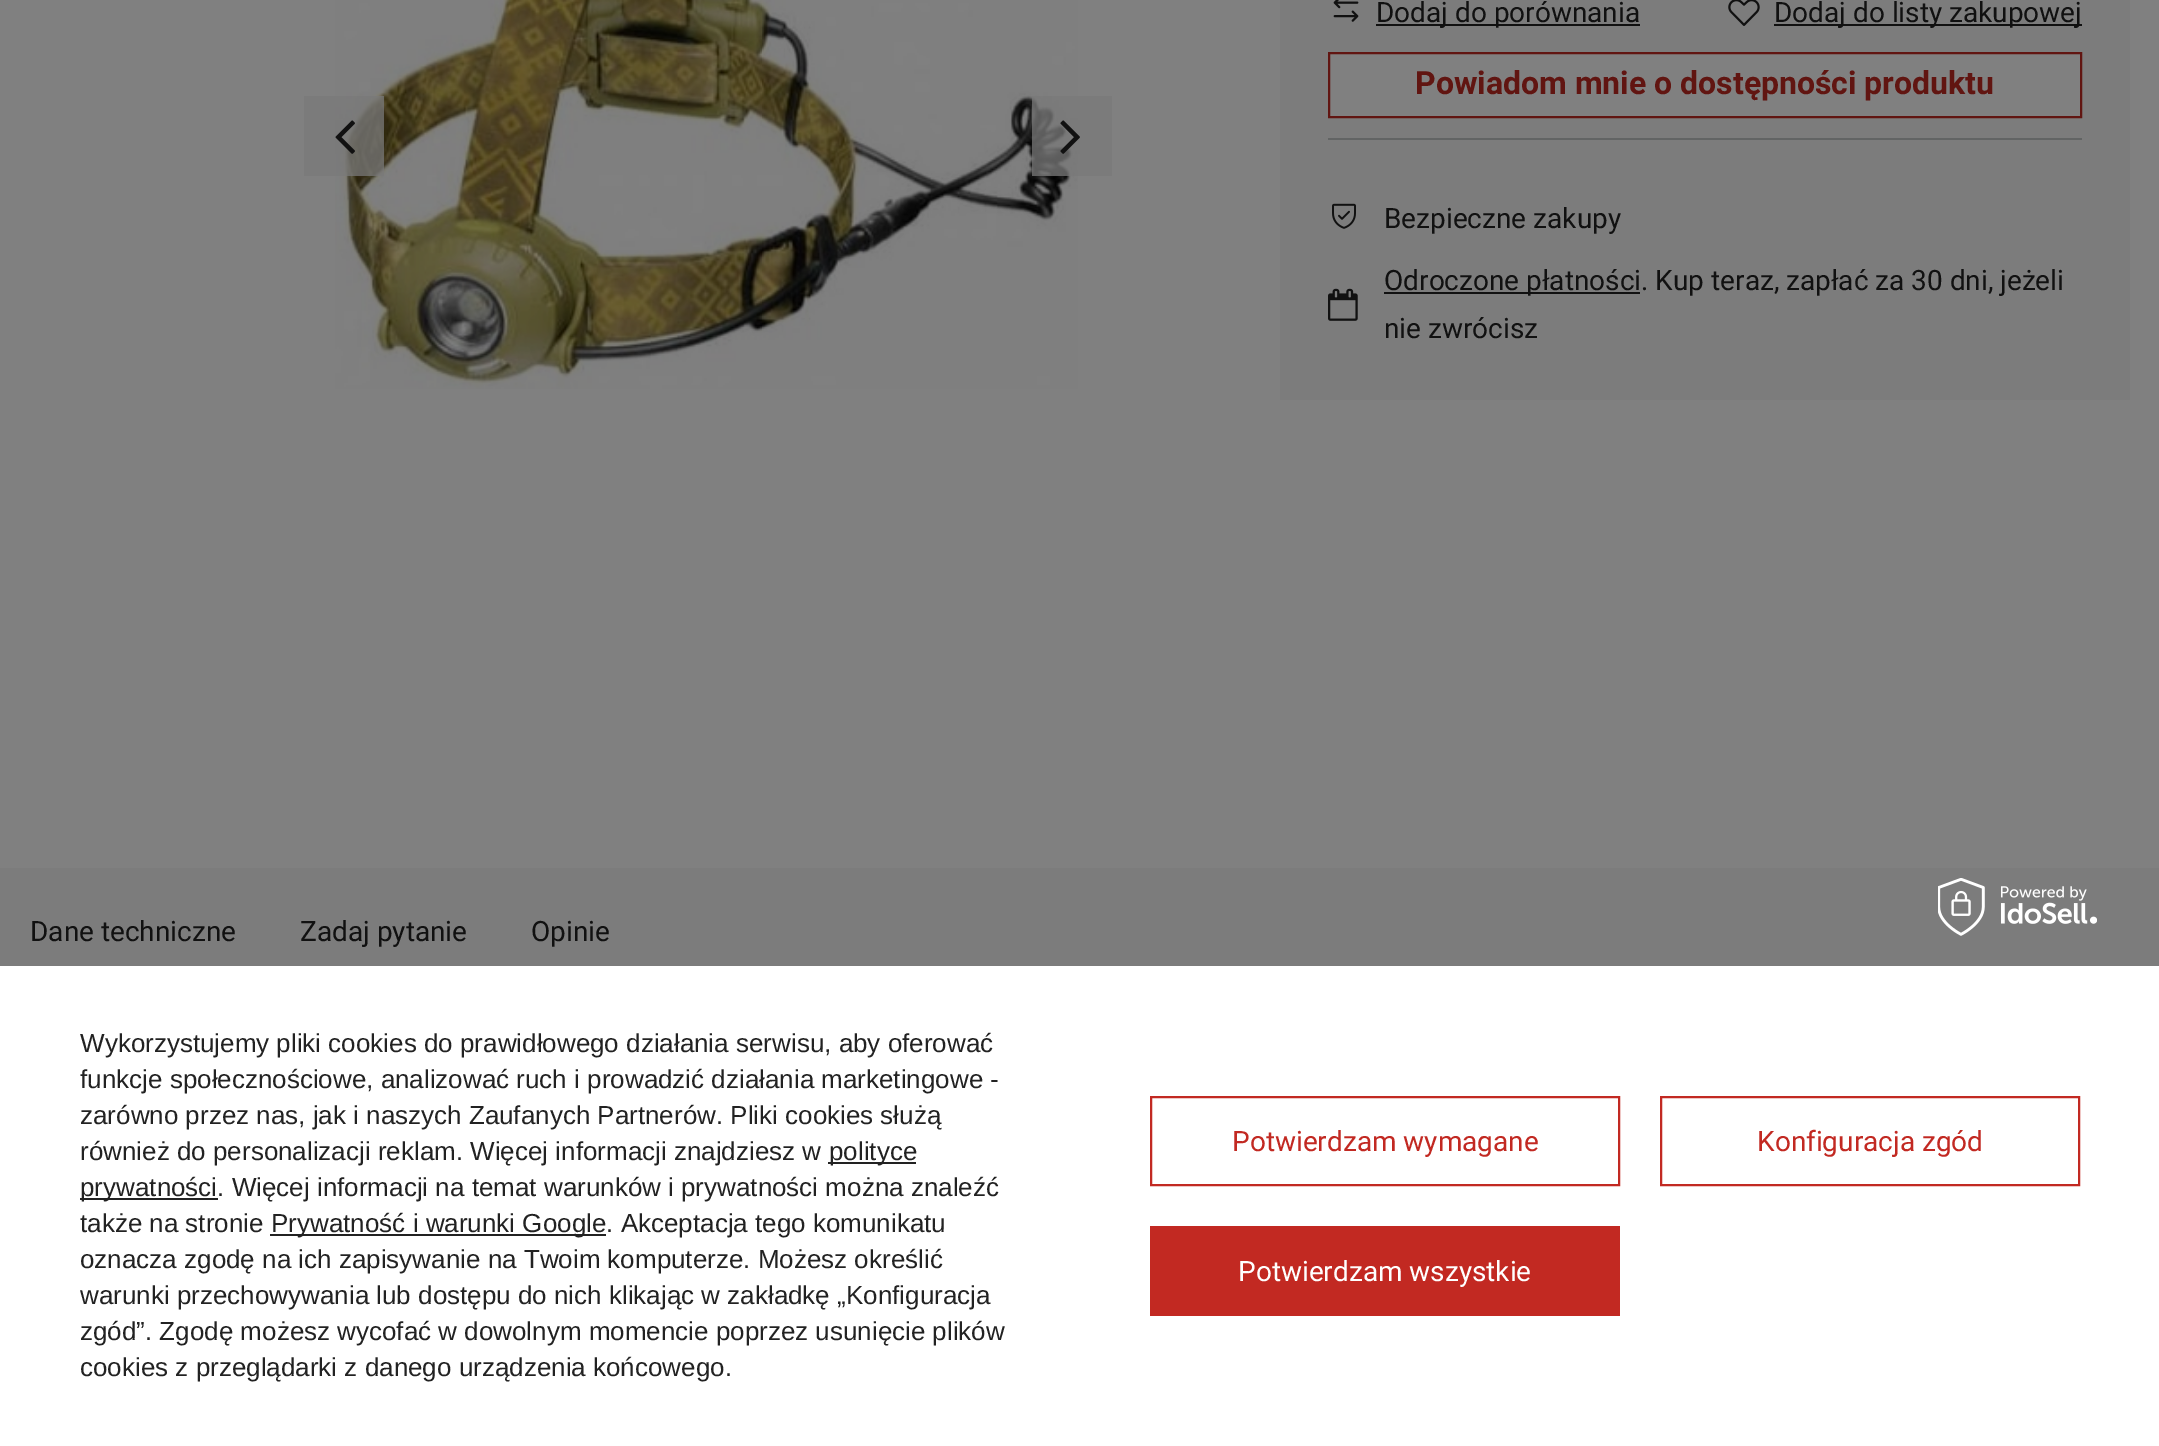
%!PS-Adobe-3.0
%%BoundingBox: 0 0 2159 1446
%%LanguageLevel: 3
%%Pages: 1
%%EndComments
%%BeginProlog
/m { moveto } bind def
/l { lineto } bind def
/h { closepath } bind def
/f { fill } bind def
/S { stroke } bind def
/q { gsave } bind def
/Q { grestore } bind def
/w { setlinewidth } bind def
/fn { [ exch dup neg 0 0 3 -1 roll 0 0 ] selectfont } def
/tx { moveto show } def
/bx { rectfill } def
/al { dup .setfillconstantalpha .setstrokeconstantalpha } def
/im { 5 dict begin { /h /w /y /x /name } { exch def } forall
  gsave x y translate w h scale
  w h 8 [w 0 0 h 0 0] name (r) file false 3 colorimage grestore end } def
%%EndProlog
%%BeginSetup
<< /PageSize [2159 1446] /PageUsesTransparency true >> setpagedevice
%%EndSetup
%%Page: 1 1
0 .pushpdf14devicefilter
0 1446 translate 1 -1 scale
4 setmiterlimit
0.502 setgray
0 0 2159 1446 bx
(image0.raw) 335 0 743 389 im
0.75 al
0.475 setgray
304 96 80 80 bx
1 al
(image1.raw) 335 120 20 34 im
0.75 al
1032 96 80 80 bx
1 al
(image2.raw) 1060 120 20 34 im
0.486 setgray
1280 0 850 400 bx
(image3.raw) 1333 0 26 22 im
0.067 setgray
1376 24 264 2 bx
/Roboto-Regular 28 fn
(Dodaj do porównania) 1376 22 tx
(image4.raw) 1728 0 32 26 im
1774 24 308 2 bx
(Dodaj do listy zakupowej) 1774 22 tx
0.502 setgray
1329 53 m 2081 53 l 2081 117 l 1329 117 l h q f Q
0.38 0.082 0.067 setrgbcolor
2 w
S
/Roboto-Bold 32 fn
(Powiadom mnie o dostępności produktu) 1415 94 tx
0.384 0.392 0.392 setrgbcolor
1328 138 754 2 bx
(image5.raw) 1332 203 24 26 im
/Roboto-Regular 28 fn
0.067 setgray
(Bezpieczne zakupy) 1384 228 tx
(image6.raw) 1328 288 30 33 im
1384 292 256 2 bx
(Odroczone płatności. Kup teraz, zapłać za 30 dni, jeżeli) 1384 290 tx
(nie zwrócisz) 1384 338 tx
0.486 setgray
0 868 2159 98 bx
0.067 setgray
(Dane techniczne) 30 941 tx
(Zadaj pytanie) 300 941 tx
(Opinie) 531 941 tx
1 setgray
0 966 2159 480 bx
(image7.raw) 1938 878 159 58 im
/LiberationSans-Regular 26 fn
0.133 setgray
(Wykorzystujemy pliki cookies do prawidłowego działania serwisu, aby oferować) 80 1052 tx
(funkcje społecznościowe, analizować ruch i prowadzić działania marketingowe -) 80 1088 tx
(zarówno przez nas, jak i naszych Zaufanych Partnerów. Pliki cookies służą) 80 1124 tx
(również do personalizacji reklam. Więcej informacji znajdziesz w) 80 1160 tx
828 1162 88 2 bx
(polityce) 829 1160 tx
80 1198 138 2 bx
(prywatności. Więcej informacji na temat warunków i prywatności można znaleźć) 80 1196 tx
(także na stronie) 80 1232 tx
270 1234 336 2 bx
(Prywatność i warunki Google. Akceptacja tego komunikatu) 271 1232 tx
(oznacza zgodę na ich zapisywanie na Twoim komputerze. Możesz określić) 80 1268 tx
(warunki przechowywania lub dostępu do nich klikając w zakładkę „Konfiguracja) 80 1304 tx
(zgód”. Zgodę możesz wycofać w dowolnym momencie poprzez usunięcie plików) 80 1340 tx
(cookies z przeglądarki z danego urządzenia końcowego.) 80 1376 tx
0.761 0.161 0.133 setrgbcolor
1151 1097 468 88 rectstroke
/Roboto-Regular 28 fn
(Potwierdzam wymagane) 1232 1151 tx
1661 1097 418 88 rectstroke
(Konfiguracja zgód) 1757 1151 tx
1150 1226 470 90 bx
1 setgray
(Potwierdzam wszystkie) 1238 1281 tx
.poppdf14devicefilter showpage
%%EOF
